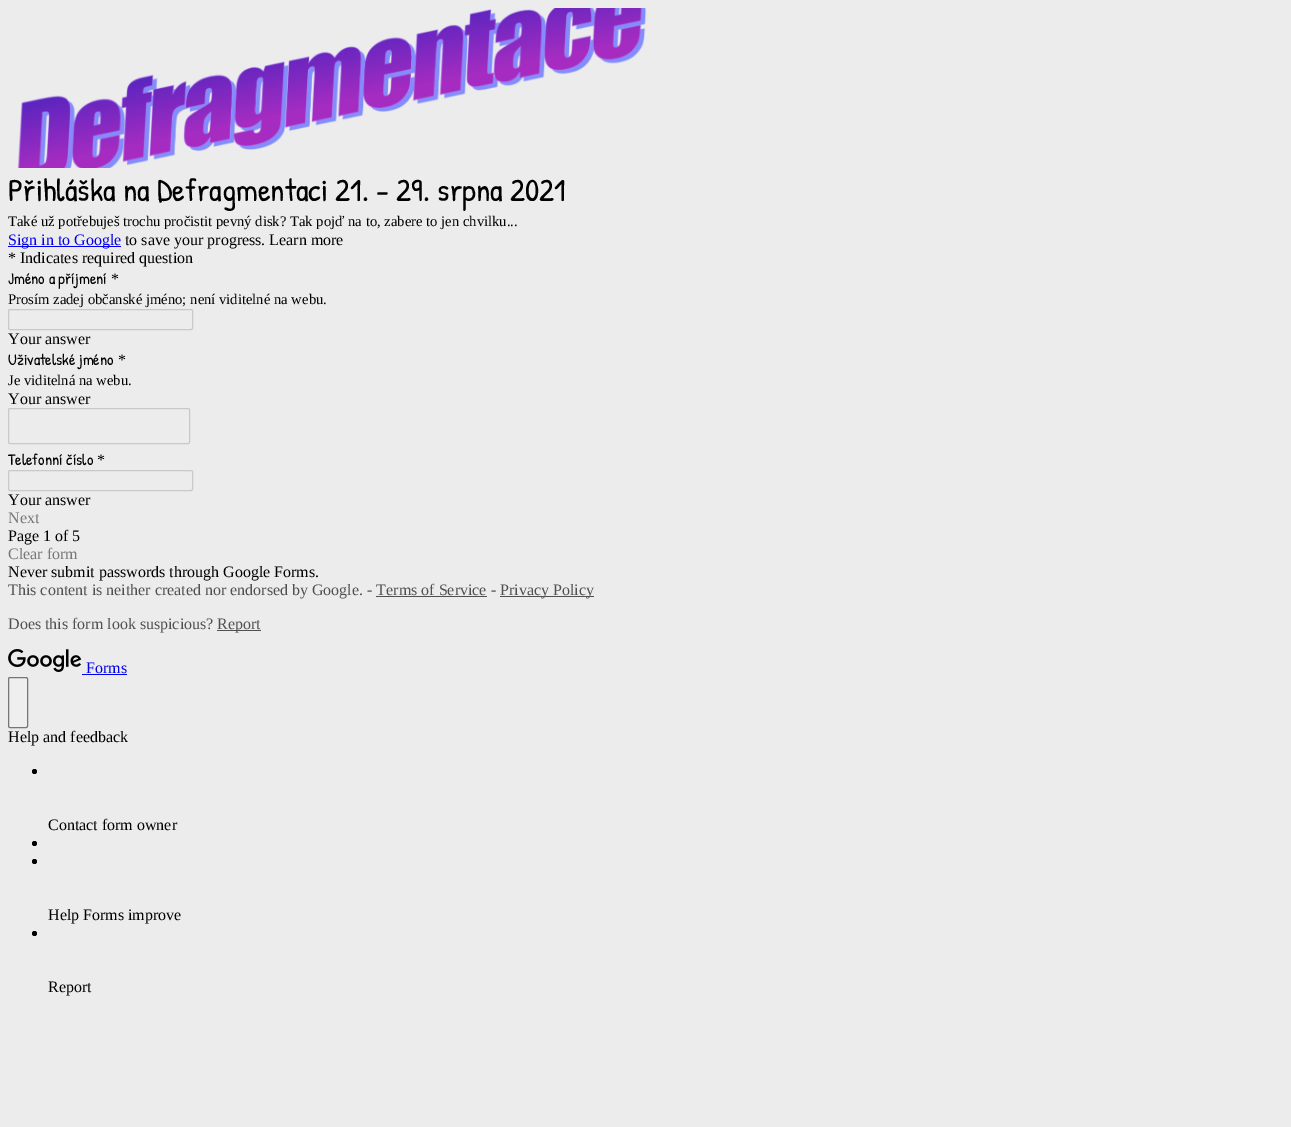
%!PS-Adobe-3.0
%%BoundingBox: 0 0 1291 1127
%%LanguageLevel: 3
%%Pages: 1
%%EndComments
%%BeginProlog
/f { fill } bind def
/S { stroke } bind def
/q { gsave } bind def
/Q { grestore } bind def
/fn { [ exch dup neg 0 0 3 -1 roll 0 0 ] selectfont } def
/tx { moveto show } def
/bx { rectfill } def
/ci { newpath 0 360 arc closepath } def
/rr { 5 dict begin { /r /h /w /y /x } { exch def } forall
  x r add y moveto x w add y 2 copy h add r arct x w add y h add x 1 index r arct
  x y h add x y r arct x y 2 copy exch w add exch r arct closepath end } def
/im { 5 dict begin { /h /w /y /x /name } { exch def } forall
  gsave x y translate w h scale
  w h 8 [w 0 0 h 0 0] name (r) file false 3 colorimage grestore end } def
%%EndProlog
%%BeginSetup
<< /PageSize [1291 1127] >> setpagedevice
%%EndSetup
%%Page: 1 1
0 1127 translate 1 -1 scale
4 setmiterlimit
0.925 setgray
0 0 1291 1127 bx
(image0.raw) 17 8 630 160 im
/PatrickHand-Regular 32 fn
0 setgray
(Přihláška na Defragmentaci 21. - 29. srpna 2021) 8 201 tx
/LiberationSerif-Regular 14.65 fn
(Také už potřebuješ trochu pročistit pevný disk? Tak pojď na to, zabere to jen chvilku...) 8 226 tx
0 0 0.933 setrgbcolor
8 246 113 1 bx
/LiberationSerif-Regular 16 fn
(Sign in to Google) 8 245 tx
0 setgray
(to save your progress. Learn more) 125 245 tx
(* Indicates required question) 8 263 tx
/PatrickHand-Regular 16 fn
(Jméno a příjmení) 8 284 tx
/LiberationSerif-Regular 16 fn
(*) 111 284 tx
/LiberationSerif-Regular 14.65 fn
(Prosím zadej občanské jméno; není viditelné na webu.) 8 304 tx
0.788 setgray
8.5 309.5 184 20 1.5 rr S
/LiberationSerif-Regular 16 fn
0 setgray
(Your answer) 8 344 tx
/PatrickHand-Regular 16 fn
(Uživatelské jméno) 8 365 tx
/LiberationSerif-Regular 16 fn
(*) 118 365 tx
/LiberationSerif-Regular 14.65 fn
(Je viditelná na webu.) 8 385 tx
/LiberationSerif-Regular 16 fn
(Your answer) 8 404 tx
0.788 setgray
8.5 408.5 181 35 1.5 rr S
/PatrickHand-Regular 16 fn
0 setgray
(Telefonní číslo) 8 465 tx
/LiberationSerif-Regular 16 fn
(*) 97 465 tx
0.788 setgray
8.5 470.5 184 20 1.5 rr S
0 setgray
(Your answer) 8 505 tx
0.467 setgray
(Next) 8 523 tx
0 setgray
(Page 1 of 5) 8 541 tx
0.467 setgray
(Clear form) 8 559 tx
0 setgray
(Never submit passwords through Google Forms.) 8 577 tx
0.314 setgray
(This content is neither created nor endorsed by Google. - Terms of Service -) 8 595 tx
500 596 94 1 bx
(Privacy Policy) 500 595 tx
376 596 111 1 bx
(Does this form look suspicious?) 8 629 tx
217 630 44 1 bx
(Report) 217 629 tx
(image1.raw) 8 649 74 23 im
0 0 0.933 setrgbcolor
(Forms) 86 673 tx
82 674 45 1 bx
0.937 setgray
8.5 677.5 19 50 1.5 rr q f Q
0.463 setgray
S
0 setgray
(Help and feedback) 8 742 tx
34.5 771.5 2.5 ci f
(Contact form owner) 48 830 tx
34.5 843.5 2.5 ci f
34.5 861.5 2.5 ci f
(Help Forms improve) 48 920 tx
34.5 933.5 2.5 ci f
(Report) 48 992 tx
showpage
%%EOF
